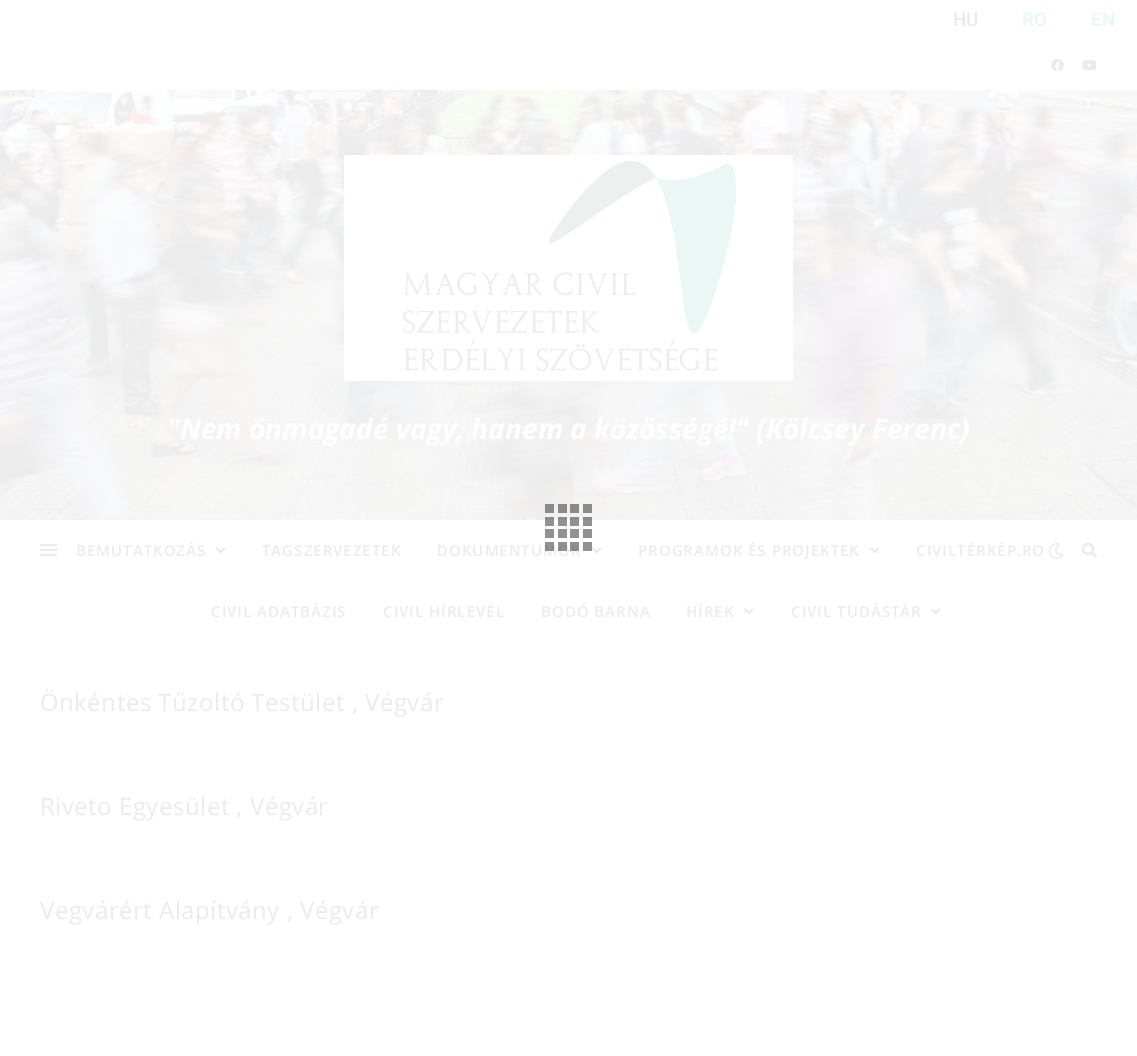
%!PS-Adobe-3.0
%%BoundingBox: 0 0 1137 1056
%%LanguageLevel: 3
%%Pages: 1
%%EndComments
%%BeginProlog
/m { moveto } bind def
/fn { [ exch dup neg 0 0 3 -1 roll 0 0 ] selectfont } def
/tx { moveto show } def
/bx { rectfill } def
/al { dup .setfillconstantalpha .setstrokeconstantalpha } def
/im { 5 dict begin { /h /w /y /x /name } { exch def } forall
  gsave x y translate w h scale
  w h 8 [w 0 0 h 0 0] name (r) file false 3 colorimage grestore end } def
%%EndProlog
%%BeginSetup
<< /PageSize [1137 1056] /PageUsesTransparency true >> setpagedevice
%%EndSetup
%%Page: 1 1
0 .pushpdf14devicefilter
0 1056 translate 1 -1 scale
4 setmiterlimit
1 setgray
0 0 1137 1056 bx
/Roboto-SemiBold 19 fn
0.922 setgray
(HU) 953 26 tx
0.922 0.969 0.961 setrgbcolor
(RO) 1022 26 tx
(EN) 1091 26 tx
(image0.raw) 1051 58 13 14 im
(image1.raw) 1082 60 15 10 im
(image2.raw) 0 90 1137 430 im
(image3.raw) 344 155 449 226 im
/OpenSans-BoldItalic 28 fn
1 setgray
("Nem önmagadé vagy, hanem a közösségé!" \(Kölcsey Ferenc\)) 167 439 tx
0.922 setgray
40 544 17 2 bx
40 549 17 2 bx
40 554 17 2 bx
/OpenSans-SemiBold 15 fn
76 556 m 1 0 (BEMUTATKOZÁS) ashow
(image4.raw) 216 547 10 7 im
262 556 m 1 0 (TAGSZERVEZETEK) ashow
437 556 m 1 0 (DOKUMENTUMOK) ashow
(image4.raw) 592 547 10 7 im
638 556 m 1 0 (PROGRAMOK ÉS PROJEKTEK) ashow
(image4.raw) 870 547 10 7 im
916 556 m 1 0 (CIVILTÉRKÉP.RO) ashow
211 617 m 1 0 (CIVIL ADATBÁZIS) ashow
383 617 m 1 0 (CIVIL HÍRLEVÉL) ashow
541 617 m 1 0 (BODÓ BARNA) ashow
686 617 m 1 0 (HÍREK) ashow
(image4.raw) 744 608 10 7 im
791 617 m 1 0 (CIVIL TUDÁSTÁR) ashow
(image4.raw) 931 608 10 7 im
(image5.raw) 1048 543 16 16 im
(image6.raw) 1082 542 15 16 im
/OpenSans-Regular 24 fn
40 711 m 0.5 0 (Önkéntes Tűzoltó Testület , Végvár) ashow
40 815 m 0.5 0 (Riveto Egyesület , Végvár) ashow
40 919 m 0.5 0 (Vegvárért Alapítvány , Végvár) ashow
0.541 0.537 0.537 setrgbcolor
545 504 9 9 bx
0.54 al
0.2 setgray
558 504 9 9 bx
570 504 9 9 bx
1 al
0.549 0.549 0.545 setrgbcolor
583 504 9 9 bx
0.54 al
0.2 setgray
545 517 9 9 bx
558 517 9 9 bx
570 517 9 9 bx
583 517 9 9 bx
1 al
0.569 setgray
545 529 9 9 bx
558 529 9 9 bx
570 529 9 9 bx
583 529 9 9 bx
0.54 al
0.2 setgray
545 542 9 9 bx
558 542 9 9 bx
570 542 9 9 bx
1 al
0.569 setgray
583 542 9 9 bx
.poppdf14devicefilter showpage
%%EOF
